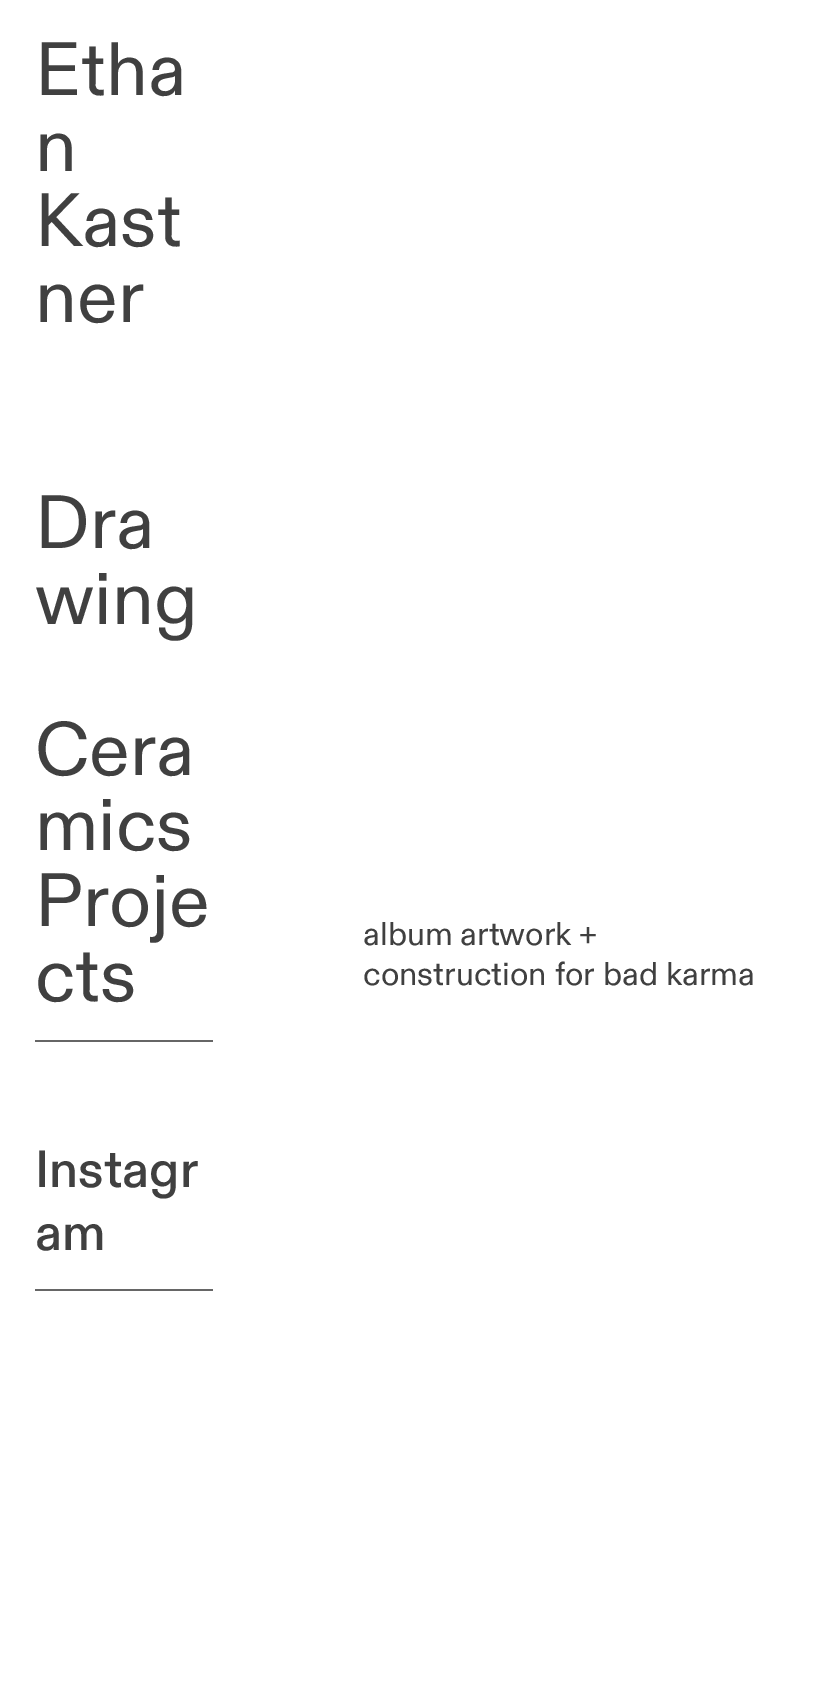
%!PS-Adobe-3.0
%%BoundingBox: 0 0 819 1696
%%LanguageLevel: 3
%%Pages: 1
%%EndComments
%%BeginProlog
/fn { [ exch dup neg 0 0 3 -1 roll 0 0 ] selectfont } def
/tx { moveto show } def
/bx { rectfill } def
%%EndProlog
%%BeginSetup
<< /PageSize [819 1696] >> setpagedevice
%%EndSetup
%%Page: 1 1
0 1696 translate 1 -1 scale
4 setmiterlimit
1 setgray
0 0 819 1696 bx
/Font-Regular 75.5 fn
0.251 setgray
(Etha) 35 95 tx
(n) 35 171 tx
(Kast) 35 246 tx
(ner) 35 322 tx
(Dra) 35 548 tx
(wing) 35 624 tx
(Cera) 35 775 tx
(mics) 35 850 tx
(Proje) 35 926 tx
(cts) 35 1001 tx
0.4 setgray
35 1040 178 2 bx
/Font-Medium 52 fn
0.251 setgray
(Instagr) 35 1187 tx
(am) 35 1250 tx
0.4 setgray
35 1289 178 2 bx
/Font-Regular 33 fn
0.251 setgray
(album artwork +) 363 945 tx
(construction for bad karma) 363 985 tx
showpage
%%EOF
